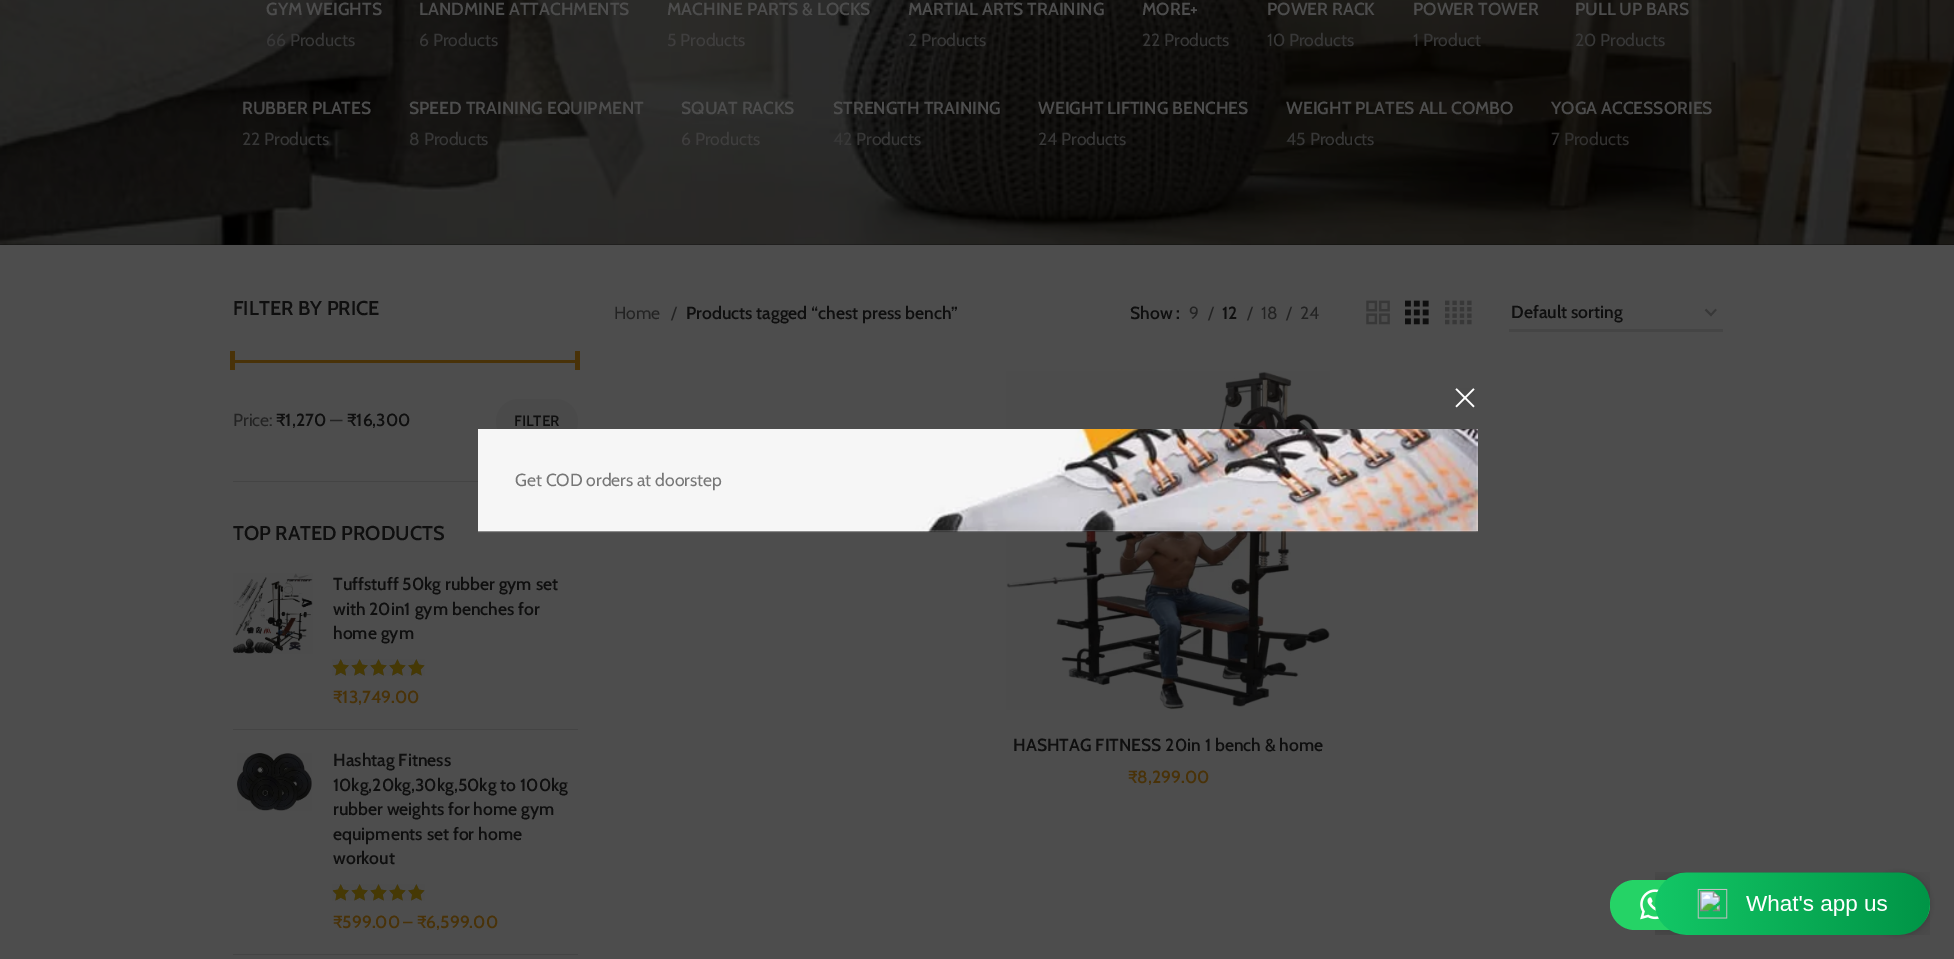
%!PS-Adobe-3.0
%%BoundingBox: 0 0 1954 959
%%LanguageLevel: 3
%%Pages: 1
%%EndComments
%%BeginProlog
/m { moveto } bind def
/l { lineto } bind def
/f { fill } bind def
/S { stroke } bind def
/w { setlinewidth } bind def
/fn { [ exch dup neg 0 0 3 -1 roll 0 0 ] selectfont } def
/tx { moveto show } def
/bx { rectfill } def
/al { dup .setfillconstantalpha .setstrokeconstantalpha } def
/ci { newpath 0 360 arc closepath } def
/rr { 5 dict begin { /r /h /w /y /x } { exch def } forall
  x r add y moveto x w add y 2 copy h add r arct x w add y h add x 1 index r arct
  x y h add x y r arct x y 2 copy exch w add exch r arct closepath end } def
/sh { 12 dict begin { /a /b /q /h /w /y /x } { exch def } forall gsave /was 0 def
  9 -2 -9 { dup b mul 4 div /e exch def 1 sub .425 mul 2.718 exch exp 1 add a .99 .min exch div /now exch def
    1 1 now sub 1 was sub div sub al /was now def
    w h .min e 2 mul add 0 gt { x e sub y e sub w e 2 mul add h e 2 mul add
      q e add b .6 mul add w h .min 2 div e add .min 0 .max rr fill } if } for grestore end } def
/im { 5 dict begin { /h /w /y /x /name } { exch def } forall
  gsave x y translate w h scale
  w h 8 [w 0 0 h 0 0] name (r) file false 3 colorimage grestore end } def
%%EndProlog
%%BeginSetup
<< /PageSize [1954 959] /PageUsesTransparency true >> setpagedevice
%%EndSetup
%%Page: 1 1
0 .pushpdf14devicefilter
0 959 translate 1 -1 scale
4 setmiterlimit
0.302 setgray
0 0 1954 959 bx
(image0.raw) 0 0 1954 245 im
/Cabin-SemiBold 17.5 fn
(GYM WEIGHTS) 266 15 tx
/Cabin-Regular 17.5 fn
0.22 setgray
(66 Products) 266 46 tx
/Cabin-SemiBold 17.5 fn
0.302 setgray
(LANDMINE ATTACHMENTS) 419 15 tx
/Cabin-Regular 17.5 fn
0.22 setgray
(6 Products) 419 46 tx
/Cabin-SemiBold 17.5 fn
0.302 setgray
(MACHINE PARTS & LOCKS) 667 15 tx
/Cabin-Regular 17.5 fn
0.247 0.243 0.243 setrgbcolor
(5 Products) 667 46 tx
/Cabin-SemiBold 17.5 fn
0.302 setgray
(MARTIAL ARTS TRAINING) 908 15 tx
/Cabin-Regular 17.5 fn
0.22 setgray
(2 Products) 908 46 tx
/Cabin-SemiBold 17.5 fn
0.302 setgray
(MORE+) 1142 15 tx
/Cabin-Regular 17.5 fn
0.22 setgray
(22 Products) 1142 46 tx
/Cabin-SemiBold 17.5 fn
0.302 setgray
(POWER RACK) 1267 15 tx
/Cabin-Regular 17.5 fn
0.22 setgray
(10 Products) 1267 46 tx
/Cabin-SemiBold 17.5 fn
0.302 setgray
(POWER TOWER) 1413 15 tx
/Cabin-Regular 17.5 fn
0.22 setgray
(1 Product) 1413 46 tx
/Cabin-SemiBold 17.5 fn
0.302 setgray
(PULL UP BARS) 1575 15 tx
/Cabin-Regular 17.5 fn
0.22 setgray
(20 Products) 1575 46 tx
/Cabin-SemiBold 17.5 fn
0.302 setgray
(RUBBER PLATES) 242 114 tx
/Cabin-Regular 17.5 fn
0.22 setgray
(22 Products) 242 145 tx
/Cabin-SemiBold 17.5 fn
0.302 setgray
(SPEED TRAINING EQUIPMENT) 409 114 tx
/Cabin-Regular 17.5 fn
0.22 setgray
(8 Products) 409 145 tx
/Cabin-SemiBold 17.5 fn
0.302 setgray
(SQUAT RACKS) 681 114 tx
/Cabin-Regular 17.5 fn
0.247 0.243 0.243 setrgbcolor
(6 Products) 681 145 tx
/Cabin-SemiBold 17.5 fn
0.302 setgray
(STRENGTH TRAINING) 833 114 tx
/Cabin-Regular 17.5 fn
0.22 setgray
(42 Products) 833 145 tx
/Cabin-SemiBold 17.5 fn
0.302 setgray
(WEIGHT LIFTING BENCHES) 1038 114 tx
/Cabin-Regular 17.5 fn
0.22 setgray
(24 Products) 1038 145 tx
/Cabin-SemiBold 17.5 fn
0.302 setgray
(WEIGHT PLATES ALL COMBO) 1286 114 tx
/Cabin-Regular 17.5 fn
0.22 setgray
(45 Products) 1286 145 tx
/Cabin-SemiBold 17.5 fn
0.302 setgray
(YOGA ACCESSORIES) 1551 114 tx
/Cabin-Regular 17.5 fn
0.2 0.196 0.192 setrgbcolor
(7 Products) 1551 145 tx
0.267 setgray
233 481 245 1 bx
/Cabin-SemiBold 20 fn
0.059 setgray
(FILTER BY PRICE) 233 315 tx
0.286 0.196 0.031 setrgbcolor
233 360 345 3 bx
230 351 5 19 bx
575 351 5 19 bx
/Cabin-Regular 17.5 fn
0.137 setgray
(Price:) 233 426 tx
/Cabin-SemiBold 17.5 fn
0.059 setgray
(₹1,270) 276 426 tx
/Cabin-Regular 17.5 fn
0.137 setgray
(—) 330 426 tx
/Cabin-SemiBold 17.5 fn
0.059 setgray
(₹16,300) 347 426 tx
0.29 setgray
496 399 82 45 22.5 rr f
/Cabin-SemiBold 15 fn
0.059 setgray
(FILTER) 514 426 tx
/Cabin-SemiBold 20 fn
(TOP RATED PRODUCTS) 233 540 tx
0.267 setgray
233 729 345 1 bx
(image1.raw) 233 573 80 81 im
/Cabin-SemiBold 17.5 fn
0.059 setgray
(Tuffstuff 50kg rubber gym set) 333 590 tx
(with 20in1 gym benches for) 333 615 tx
(home gym) 333 639 tx
(image2.raw) 332 659 93 17 im
(image3.raw) 333 659 92 17 im
0.286 0.196 0.031 setrgbcolor
(₹13,749.00) 333 703 tx
0.267 setgray
233 954 345 1 bx
(image4.raw) 237 753 75 58 im
0.059 setgray
(Hashtag Fitness) 333 766 tx
(10kg,20kg,30kg,50kg to 100kg) 333 791 tx
(rubber weights for home gym) 333 815 tx
(equipments set for home) 333 840 tx
(workout) 333 864 tx
(image2.raw) 332 884 93 17 im
(image3.raw) 333 884 92 17 im
0.286 0.196 0.031 setrgbcolor
(₹599.00) 333 928 tx
/Cabin-Regular 17.5 fn
(–) 403 928 tx
/Cabin-SemiBold 17.5 fn
(₹6,599.00) 417 928 tx
/Cabin-Regular 17.5 fn
0.137 setgray
(Home) 614 319 tx
(/) 671 319 tx
/Cabin-SemiBold 17.5 fn
0.059 setgray
(Products tagged “chest press bench”) 686 319 tx
(Show :) 1130 319 tx
/Cabin-Regular 17.5 fn
0.137 setgray
(9) 1189 319 tx
(/) 1208 319 tx
/Cabin-SemiBold 17.5 fn
0.059 setgray
(12) 1222 319 tx
/Cabin-Regular 17.5 fn
0.137 setgray
(/) 1247 319 tx
(18) 1261 319 tx
(/) 1286 319 tx
(24) 1300 319 tx
(image5.raw) 1366 300 24 25 im
(image6.raw) 1405 300 24 25 im
(image7.raw) 1445 300 27 25 im
0.22 setgray
1.8 w
1705.5 309.5 m 1711 315 l 1716 309.5 l S
0.271 setgray
1509 329 214 3 bx
/Cabin-SemiBold 17.5 fn
0.059 setgray
(Default sorting) 1511 318 tx
(image8.raw) 1006 371 324 339 im
(HASHTAG FITNESS 20in 1 bench & home) 1013 751 tx
0.286 0.196 0.031 setrgbcolor
(₹8,299.00) 1128 783 tx
(image9.raw) 1455 388 20 20 im
1 setgray
478 429 1000 102 bx
(image10.raw) 478 429 1000 104 im
/Cabin-Regular 17.5 fn
0.467 setgray
(Get COD orders at doorstep) 515 486 tx
0 setgray
1868 873 62 62 31 3 0.17 sh
0.9 al
0.302 setgray
1899 904 31 ci f
1 al
0.145 0.827 0.4 setrgbcolor
1610 880 320 50 25 rr f
(image12.raw) 1640 889 20 31 im
(image11.raw) 1655 872 275 63 im
.poppdf14devicefilter showpage
%%EOF
